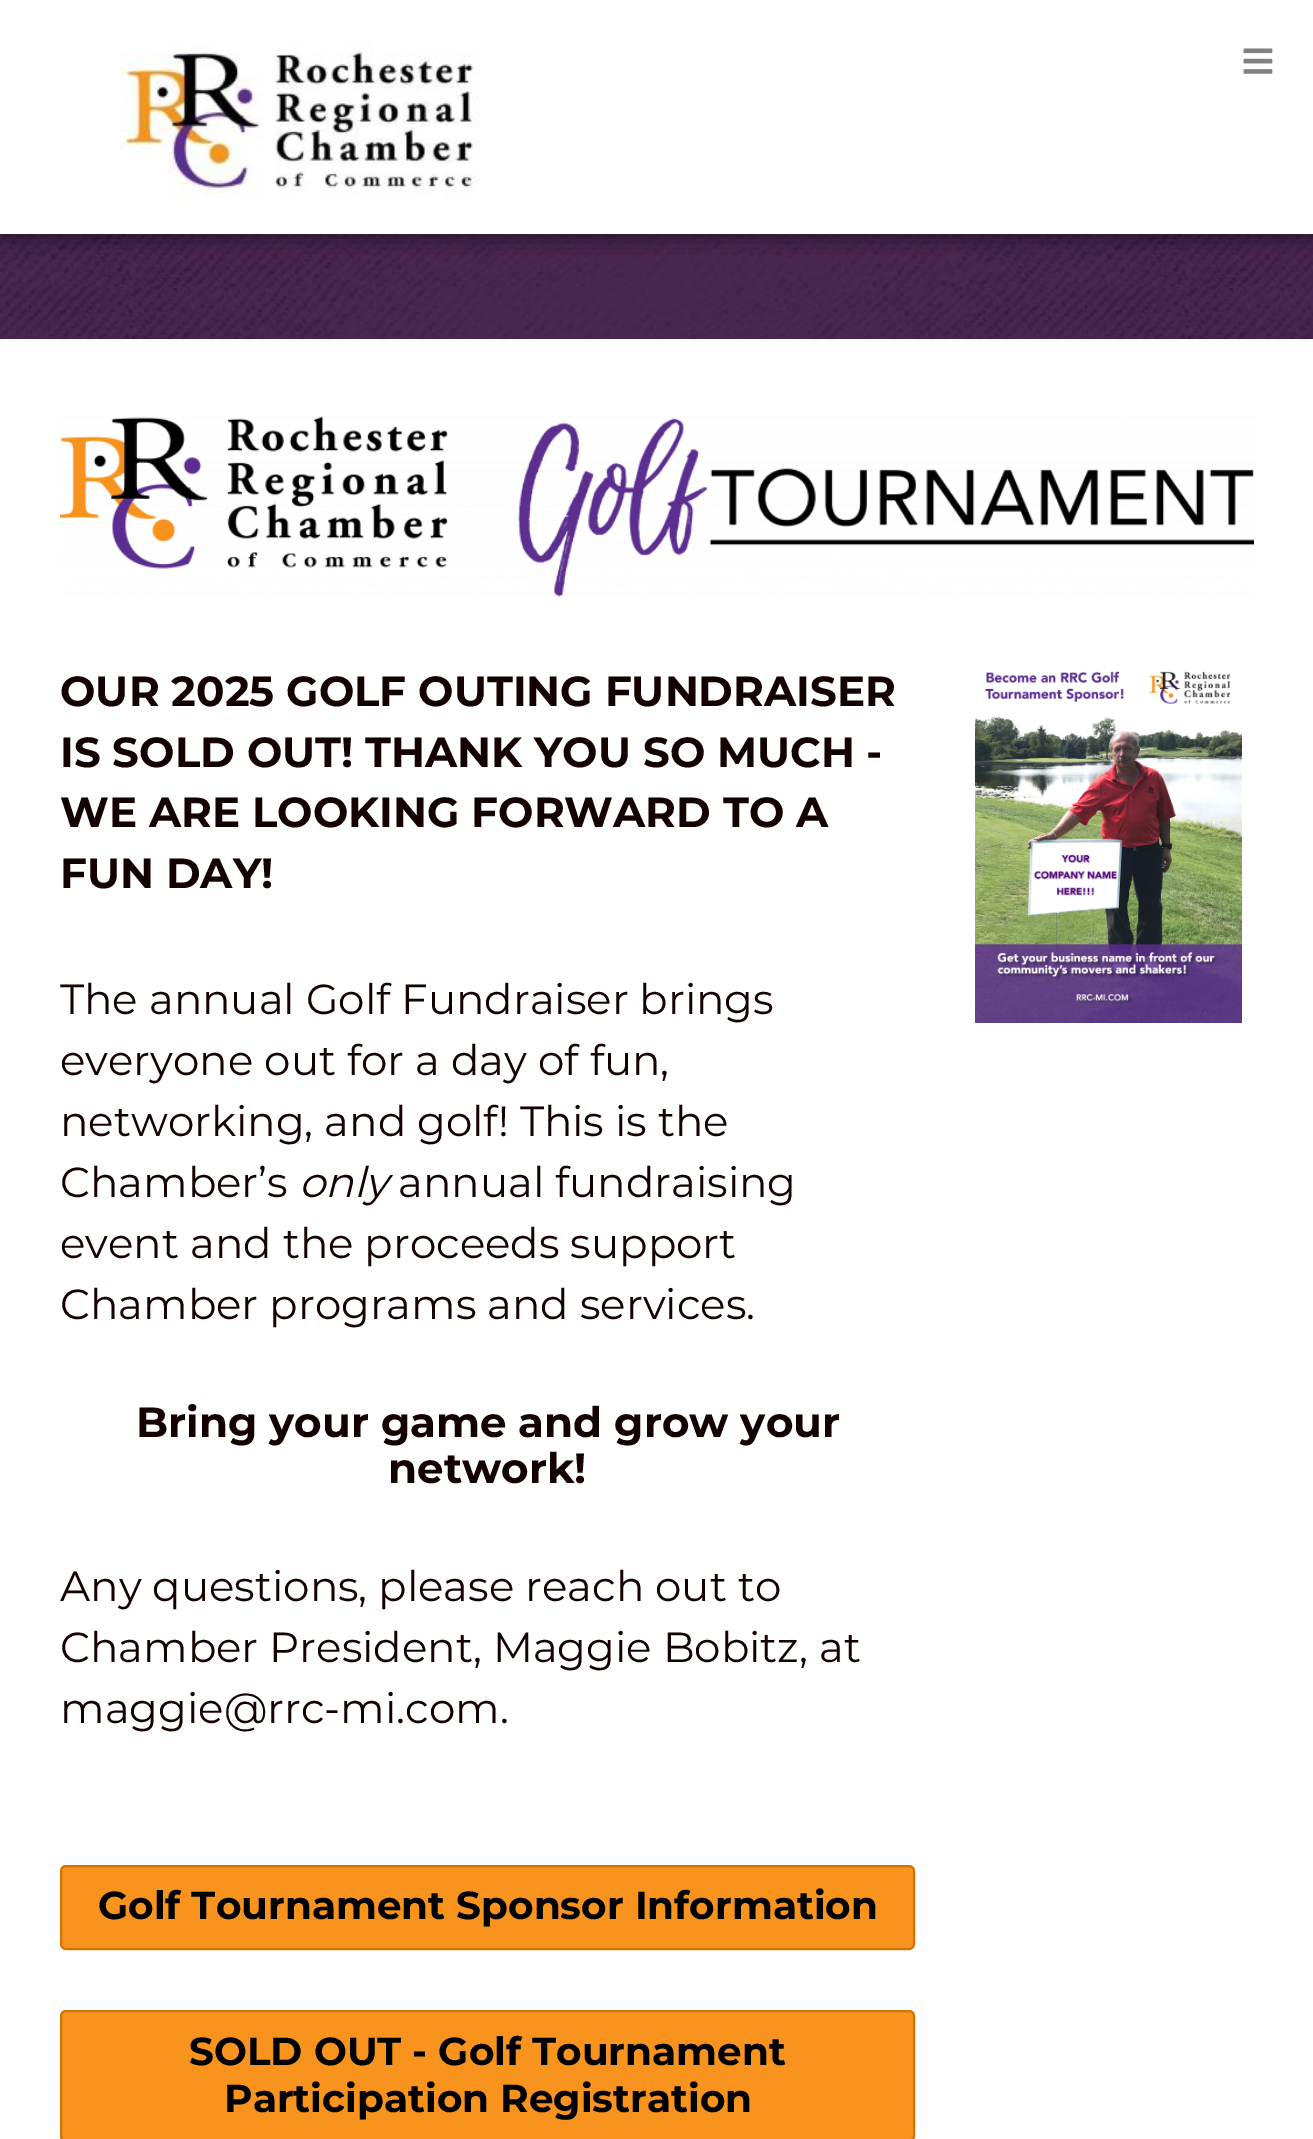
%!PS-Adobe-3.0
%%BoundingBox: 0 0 1313 2139
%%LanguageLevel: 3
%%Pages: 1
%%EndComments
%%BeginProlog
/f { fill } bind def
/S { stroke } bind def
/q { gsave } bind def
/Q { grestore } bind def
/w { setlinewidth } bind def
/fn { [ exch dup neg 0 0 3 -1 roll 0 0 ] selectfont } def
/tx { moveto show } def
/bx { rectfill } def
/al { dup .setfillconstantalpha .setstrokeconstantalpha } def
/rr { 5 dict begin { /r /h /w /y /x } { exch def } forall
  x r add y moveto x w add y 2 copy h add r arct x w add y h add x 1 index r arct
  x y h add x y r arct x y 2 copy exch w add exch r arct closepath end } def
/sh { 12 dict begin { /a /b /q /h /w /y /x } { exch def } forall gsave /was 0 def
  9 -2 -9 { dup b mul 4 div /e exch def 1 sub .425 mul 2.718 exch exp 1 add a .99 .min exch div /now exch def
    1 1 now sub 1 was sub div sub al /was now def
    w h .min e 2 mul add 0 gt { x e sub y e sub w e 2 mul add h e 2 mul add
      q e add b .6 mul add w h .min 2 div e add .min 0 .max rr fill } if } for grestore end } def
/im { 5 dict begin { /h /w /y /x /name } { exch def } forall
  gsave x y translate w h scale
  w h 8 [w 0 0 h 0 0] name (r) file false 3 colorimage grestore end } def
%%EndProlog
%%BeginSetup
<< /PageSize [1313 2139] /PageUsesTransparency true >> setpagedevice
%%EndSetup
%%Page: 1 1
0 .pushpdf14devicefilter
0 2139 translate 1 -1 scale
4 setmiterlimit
1 setgray
0 0 1313 2139 bx
(image2.raw) 0 234 1313 105 im
q
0 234 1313 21 rectclip
0 setgray
2 2 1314 234 0 11 0.5 sh
Q
(image0.raw) 120 42 360 157 im
(image1.raw) 1243 48 30 26 im
(image3.raw) 60 416 1194 181 im
/Montserrat-Bold 42 fn
0.078 0.008 0 setrgbcolor
(OUR 2025 GOLF OUTING FUNDRAISER) 60 706 tx
(IS SOLD OUT! THANK YOU SO MUCH -) 60 767 tx
(WE ARE LOOKING FORWARD TO A) 60 827 tx
(FUN DAY!) 60 888 tx
/Montserrat-Regular 42 fn
(The annual Golf Fundraiser brings) 60 1014 tx
(everyone out for a day of fun,) 60 1075 tx
(networking, and golf! This is the) 60 1136 tx
(Chamber’s) 60 1197 tx
/Montserrat-Italic 42 fn
(only) 299 1197 tx
/Montserrat-Regular 42 fn
(annual fundraising) 398 1197 tx
(event and the proceeds support) 60 1258 tx
(Chamber programs and services.) 60 1319 tx
/Montserrat-Bold 42 fn
(Bring your game and grow your) 136 1437 tx
(network!) 388 1483 tx
/Montserrat-Regular 42 fn
(Any questions, please reach out to) 60 1601 tx
(Chamber President, Maggie Bobitz, at) 60 1662 tx
(maggie@rrc-mi.com.) 60 1723 tx
0.973 0.576 0.114 setrgbcolor
61 1866 853 83 5 rr q f Q
0.82 0.455 0.024 setrgbcolor
2 w
S
/Montserrat-Bold 39 fn
0 setgray
(Golf Tournament Sponsor Information) 98 1919 tx
0.973 0.576 0.114 setrgbcolor
61 2011 853 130 5 rr q f Q
0.82 0.455 0.024 setrgbcolor
S
0 setgray
(SOLD OUT - Golf Tournament) 189 2065 tx
(Participation Registration) 224 2112 tx
(image4.raw) 975 671 267 352 im
.poppdf14devicefilter showpage
%%EOF
